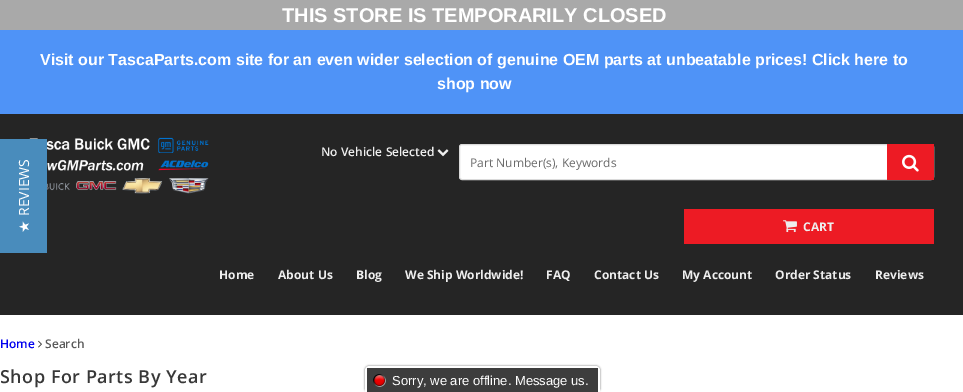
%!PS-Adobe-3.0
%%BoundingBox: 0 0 963 392
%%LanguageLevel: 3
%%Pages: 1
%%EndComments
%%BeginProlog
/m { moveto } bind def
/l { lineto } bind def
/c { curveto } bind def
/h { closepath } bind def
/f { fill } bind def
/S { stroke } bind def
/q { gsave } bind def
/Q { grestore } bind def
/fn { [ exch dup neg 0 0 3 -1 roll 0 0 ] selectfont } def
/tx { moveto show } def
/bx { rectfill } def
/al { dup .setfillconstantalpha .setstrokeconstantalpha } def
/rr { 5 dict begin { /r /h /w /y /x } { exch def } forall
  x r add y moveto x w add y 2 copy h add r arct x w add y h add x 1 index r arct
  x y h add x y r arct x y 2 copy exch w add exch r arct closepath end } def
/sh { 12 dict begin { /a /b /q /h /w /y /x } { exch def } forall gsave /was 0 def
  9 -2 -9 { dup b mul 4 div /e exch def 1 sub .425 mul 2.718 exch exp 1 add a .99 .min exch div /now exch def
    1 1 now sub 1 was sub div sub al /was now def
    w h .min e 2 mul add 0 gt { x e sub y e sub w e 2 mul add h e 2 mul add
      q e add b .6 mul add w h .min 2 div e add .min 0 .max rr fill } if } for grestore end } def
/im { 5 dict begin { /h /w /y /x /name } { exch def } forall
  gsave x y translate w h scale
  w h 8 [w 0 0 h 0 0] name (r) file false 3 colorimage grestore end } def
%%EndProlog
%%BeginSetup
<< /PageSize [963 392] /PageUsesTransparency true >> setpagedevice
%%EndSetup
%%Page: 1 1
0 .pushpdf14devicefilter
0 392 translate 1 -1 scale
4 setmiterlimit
1 setgray
0 0 963 392 bx
0.663 setgray
0 0 963 30 bx
/LiberationSans-Bold 20 fn
1 setgray
(THIS STORE IS TEMPORARILY CLOSED) 282 22 tx
0.31 0.576 0.969 setrgbcolor
0 30 963 84 bx
/LiberationSans-Bold 16 fn
1 setgray
(Visit our TascaParts.com site for an even wider selection of genuine OEM parts at unbeatable prices! Click here to) 40 65 tx
(shop now) 437 89 tx
0.145 setgray
0 114 963 201 bx
(image0.raw) 29 137 180 57 im
/OpenSans-SemiBold 12 fn
0.933 setgray
(No Vehicle Selected) 321 156 tx
(image1.raw) 437 149 12 8 im
1 setgray
459.5 144.5 474 35 2.5 rr q f Q
0.855 setgray
S
/OpenSans-Regular 12 fn
0.42 setgray
(Part Number\(s\), Keywords) 470 167 tx
0.929 0.106 0.141 setrgbcolor
887 144 47 36 bx
(image2.raw) 902 154 17 18 im
684 209 250 35 bx
(image3.raw) 783 220 14 13 im
/OpenSans-Bold 12 fn
0.933 setgray
(CART) 803 231 tx
(Home) 219 279 tx
(About Us) 278 279 tx
(Blog) 356 279 tx
(We Ship Worldwide!) 405 279 tx
(FAQ) 546 279 tx
(Contact Us) 594 279 tx
(My Account) 682 279 tx
(Order Status) 775 279 tx
(Reviews) 875 279 tx
/OpenSans-SemiBold 12 fn
0 0 0.933 setrgbcolor
(Home) 0 348 tx
(image4.raw) 38 340 4 8 im
0.353 setgray
(Search) 45 348 tx
/OpenSans-SemiBold 18 fn
0.22 setgray
0 383 m 0.5 0 (Shop For Parts By Year) ashow
0.286 0.549 0.737 setrgbcolor
0 139 47 114 bx
/OpenSans-Regular 14 fn
1 setgray
q 29 216 translate -90 rotate 0 0 m (REVIEWS) show Q
/DejaVuSans-Regular 14 fn
q 29 233 translate -90 rotate 0 0 m (★) show Q
0.4 setgray
365 366 235 26 4 1 1 sh
1 setgray
369 366 m 596 366 l 598 366 600 368 600 370 c 600 392 l 365 392 l 365 370 l 365 368 367 366 369 366 c h f
0.239 setgray
367 368 231 24 bx
(image5.raw) 373 374 13 13 im
/LiberationSans-Regular 13 fn
1 setgray
(Sorry, we are offline. Message us.) 392 385 tx
.poppdf14devicefilter showpage
%%EOF
